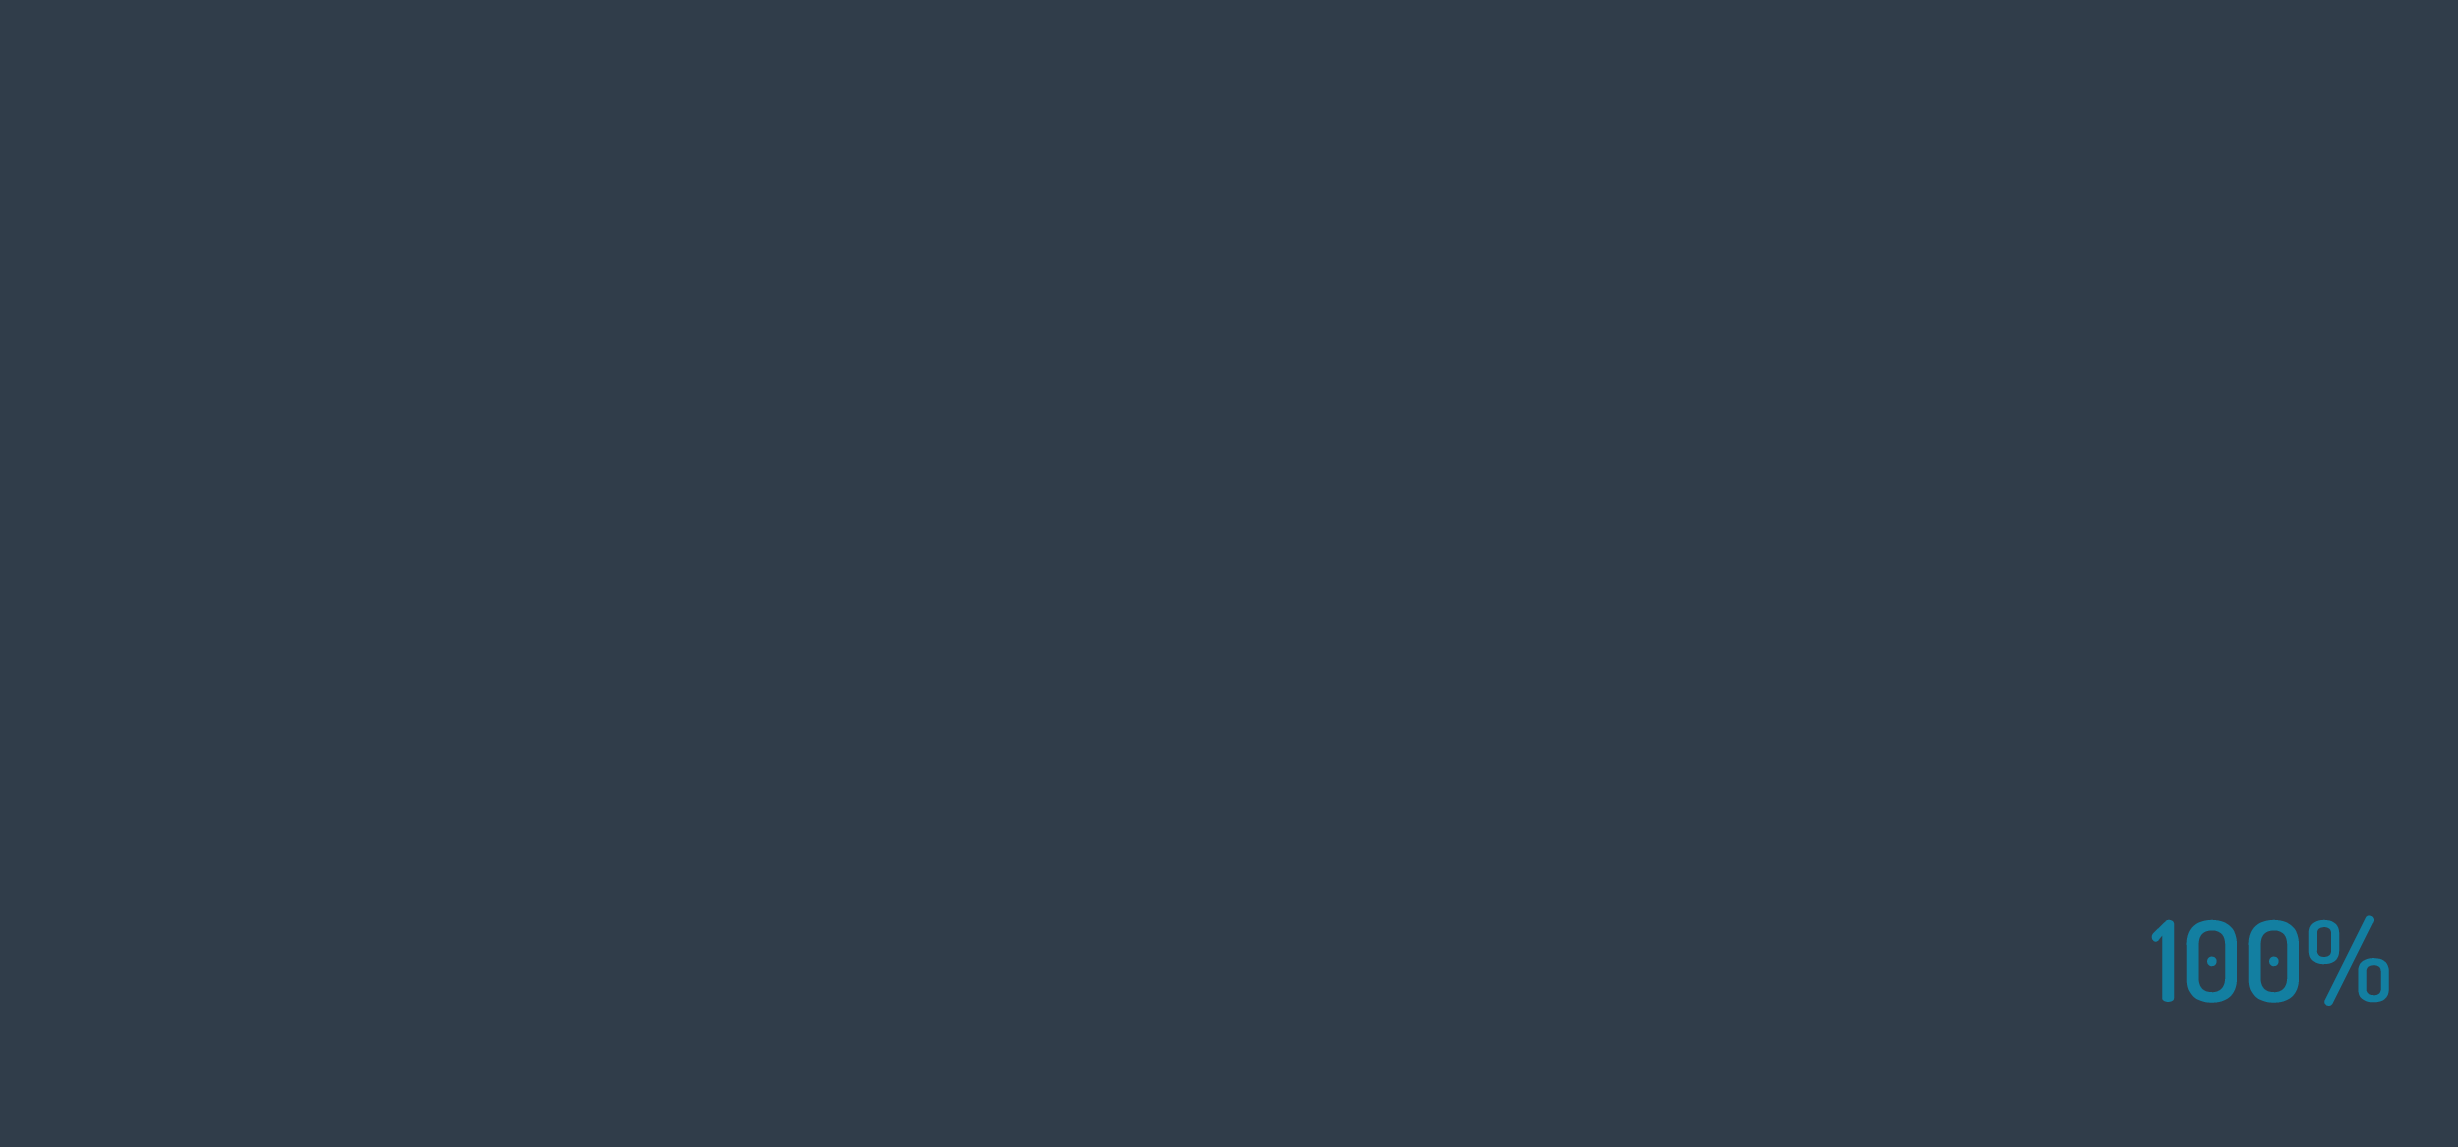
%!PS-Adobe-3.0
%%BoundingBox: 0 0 2458 1147
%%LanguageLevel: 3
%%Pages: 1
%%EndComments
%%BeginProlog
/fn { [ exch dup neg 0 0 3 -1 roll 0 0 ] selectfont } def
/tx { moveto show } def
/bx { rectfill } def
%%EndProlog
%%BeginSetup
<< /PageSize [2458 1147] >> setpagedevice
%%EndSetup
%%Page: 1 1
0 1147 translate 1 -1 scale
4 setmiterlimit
0.188 0.239 0.29 setrgbcolor
0 0 2458 1147 bx
/Dosis-SemiBold 112.5 fn
0.075 0.498 0.631 setrgbcolor
(100%) 2151 1002 tx
showpage
%%EOF
